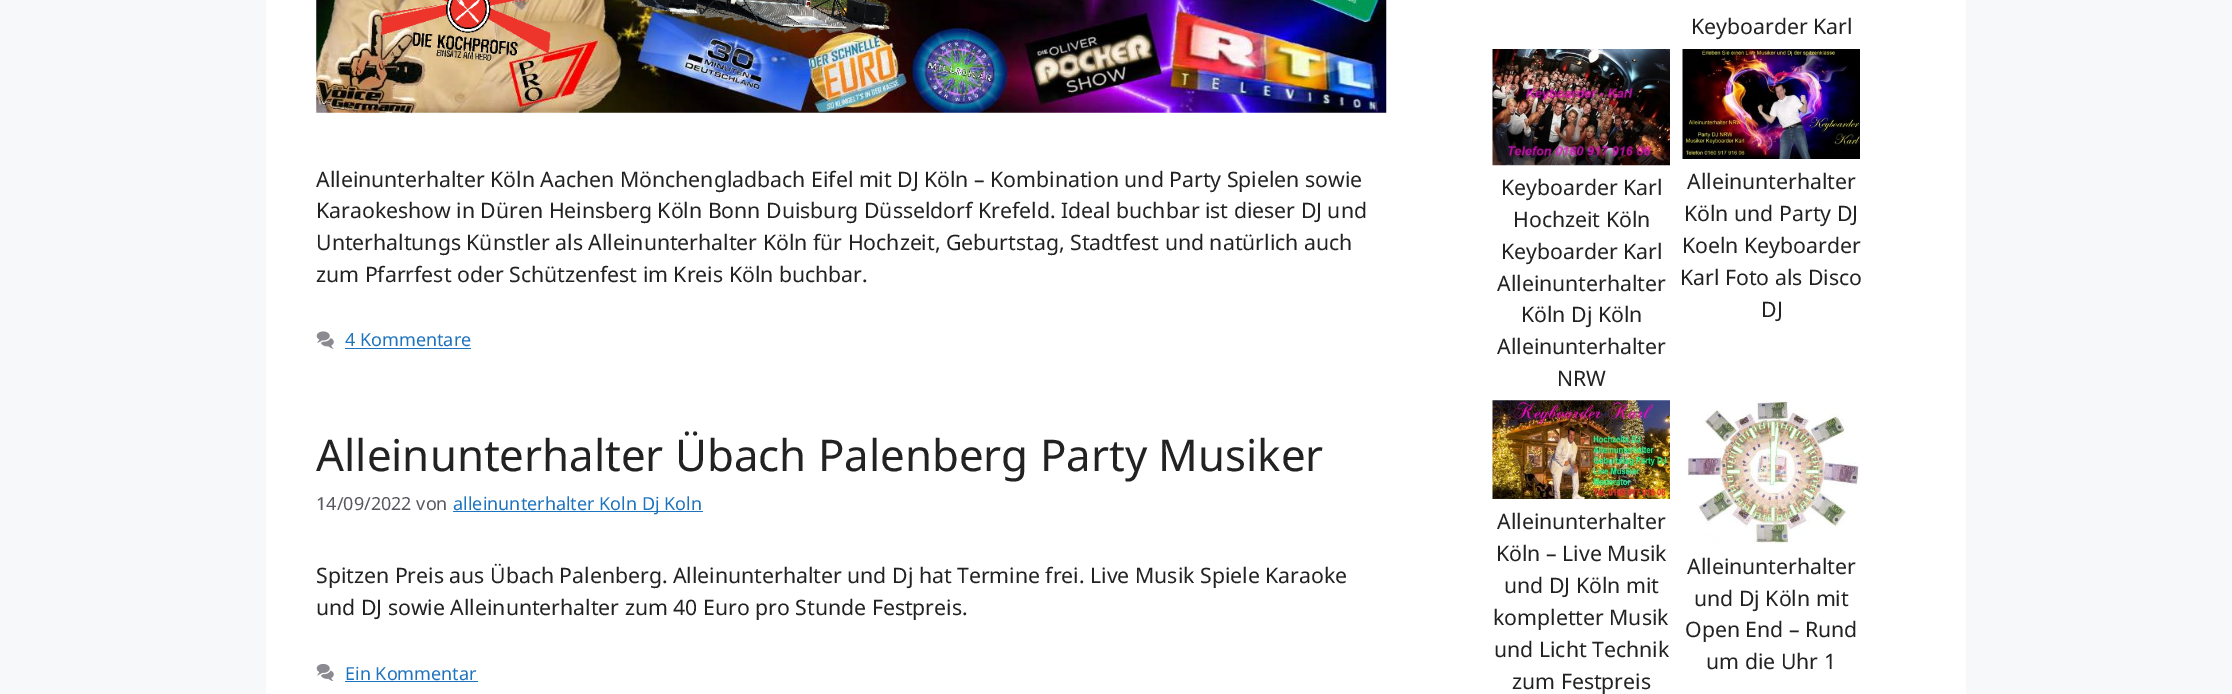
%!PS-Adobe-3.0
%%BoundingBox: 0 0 2232 694
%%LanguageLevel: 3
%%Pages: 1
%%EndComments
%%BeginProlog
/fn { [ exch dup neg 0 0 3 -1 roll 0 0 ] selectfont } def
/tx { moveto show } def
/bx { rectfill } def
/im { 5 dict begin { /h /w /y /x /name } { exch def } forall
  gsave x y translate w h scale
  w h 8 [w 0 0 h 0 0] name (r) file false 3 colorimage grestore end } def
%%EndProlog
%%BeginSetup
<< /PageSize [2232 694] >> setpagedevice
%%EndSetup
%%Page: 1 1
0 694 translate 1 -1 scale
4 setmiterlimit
0.969 0.973 0.976 setrgbcolor
0 0 2232 694 bx
1 setgray
266 0 1700 694 bx
(image0.raw) 316 0 1071 113 im
/NotoSans-Regular 21.25 fn
0.133 setgray
(Alleinunterhalter Köln Aachen Mönchengladbach Eifel mit DJ Köln – Kombination und Party Spielen sowie) 316 187 tx
(Karaokeshow in Düren Heinsberg Köln Bonn Duisburg Düsseldorf Krefeld. Ideal buchbar ist dieser DJ und) 316 218 tx
(Unterhaltungs Künstler als Alleinunterhalter Köln für Hochzeit, Geburtstag, Stadtfest und natürlich auch) 316 250 tx
(zum Pfarrfest oder Schützenfest im Kreis Köln buchbar.) 316 282 tx
(image1.raw) 316 331 18 18 im
/NotoSans-Regular 18 fn
0.118 0.451 0.745 setrgbcolor
(4 Kommentare) 345 346 tx
345 348 126 1 bx
/NotoSans-Regular 43.75 fn
0.133 setgray
(Alleinunterhalter Übach Palenberg Party Musiker) 316 471 tx
/NotoSans-Regular 18 fn
0.341 0.341 0.376 setrgbcolor
(14/09/2022 von) 316 510 tx
0.118 0.451 0.745 setrgbcolor
453 511 250 1 bx
(alleinunterhalter Koln Dj Koln) 453 510 tx
/NotoSans-Regular 21.25 fn
0.133 setgray
(Spitzen Preis aus Übach Palenberg. Alleinunterhalter und Dj hat Termine frei. Live Musik Spiele Karaoke) 316 583 tx
(und DJ sowie Alleinunterhalter zum 40 Euro pro Stunde Festpreis.) 316 615 tx
(image2.raw) 316 664 18 17 im
/NotoSans-Regular 18 fn
0.118 0.451 0.745 setrgbcolor
(Ein Kommentar) 345 680 tx
345 681 133 1 bx
/NotoSans-Regular 21.25 fn
0.133 setgray
(Keyboarder Karl) 1691 34 tx
(image3.raw) 1492 49 178 117 im
(Keyboarder Karl) 1501 195 tx
(Hochzeit Köln) 1513 227 tx
(Keyboarder Karl) 1501 259 tx
(Alleinunterhalter) 1497 291 tx
(Köln Dj Köln) 1521 322 tx
(Alleinunterhalter) 1497 354 tx
(NRW) 1557 386 tx
(image4.raw) 1682 49 178 110 im
(Alleinunterhalter) 1687 189 tx
(Köln und Party DJ) 1684 221 tx
(Koeln Keyboarder) 1682 253 tx
(Karl Foto als Disco) 1680 285 tx
(DJ) 1761 317 tx
(image5.raw) 1492 400 178 99 im
(Alleinunterhalter) 1497 529 tx
(Köln – Live Musik) 1496 561 tx
(und DJ Köln mit) 1504 593 tx
(kompletter Musik) 1493 625 tx
(und Licht Technik) 1494 657 tx
(zum Festpreis) 1512 689 tx
(image6.raw) 1687 400 173 144 im
(Alleinunterhalter) 1687 574 tx
(und Dj Köln mit) 1694 606 tx
(Open End – Rund) 1685 637 tx
(um die Uhr 1) 1706 669 tx
showpage
%%EOF
